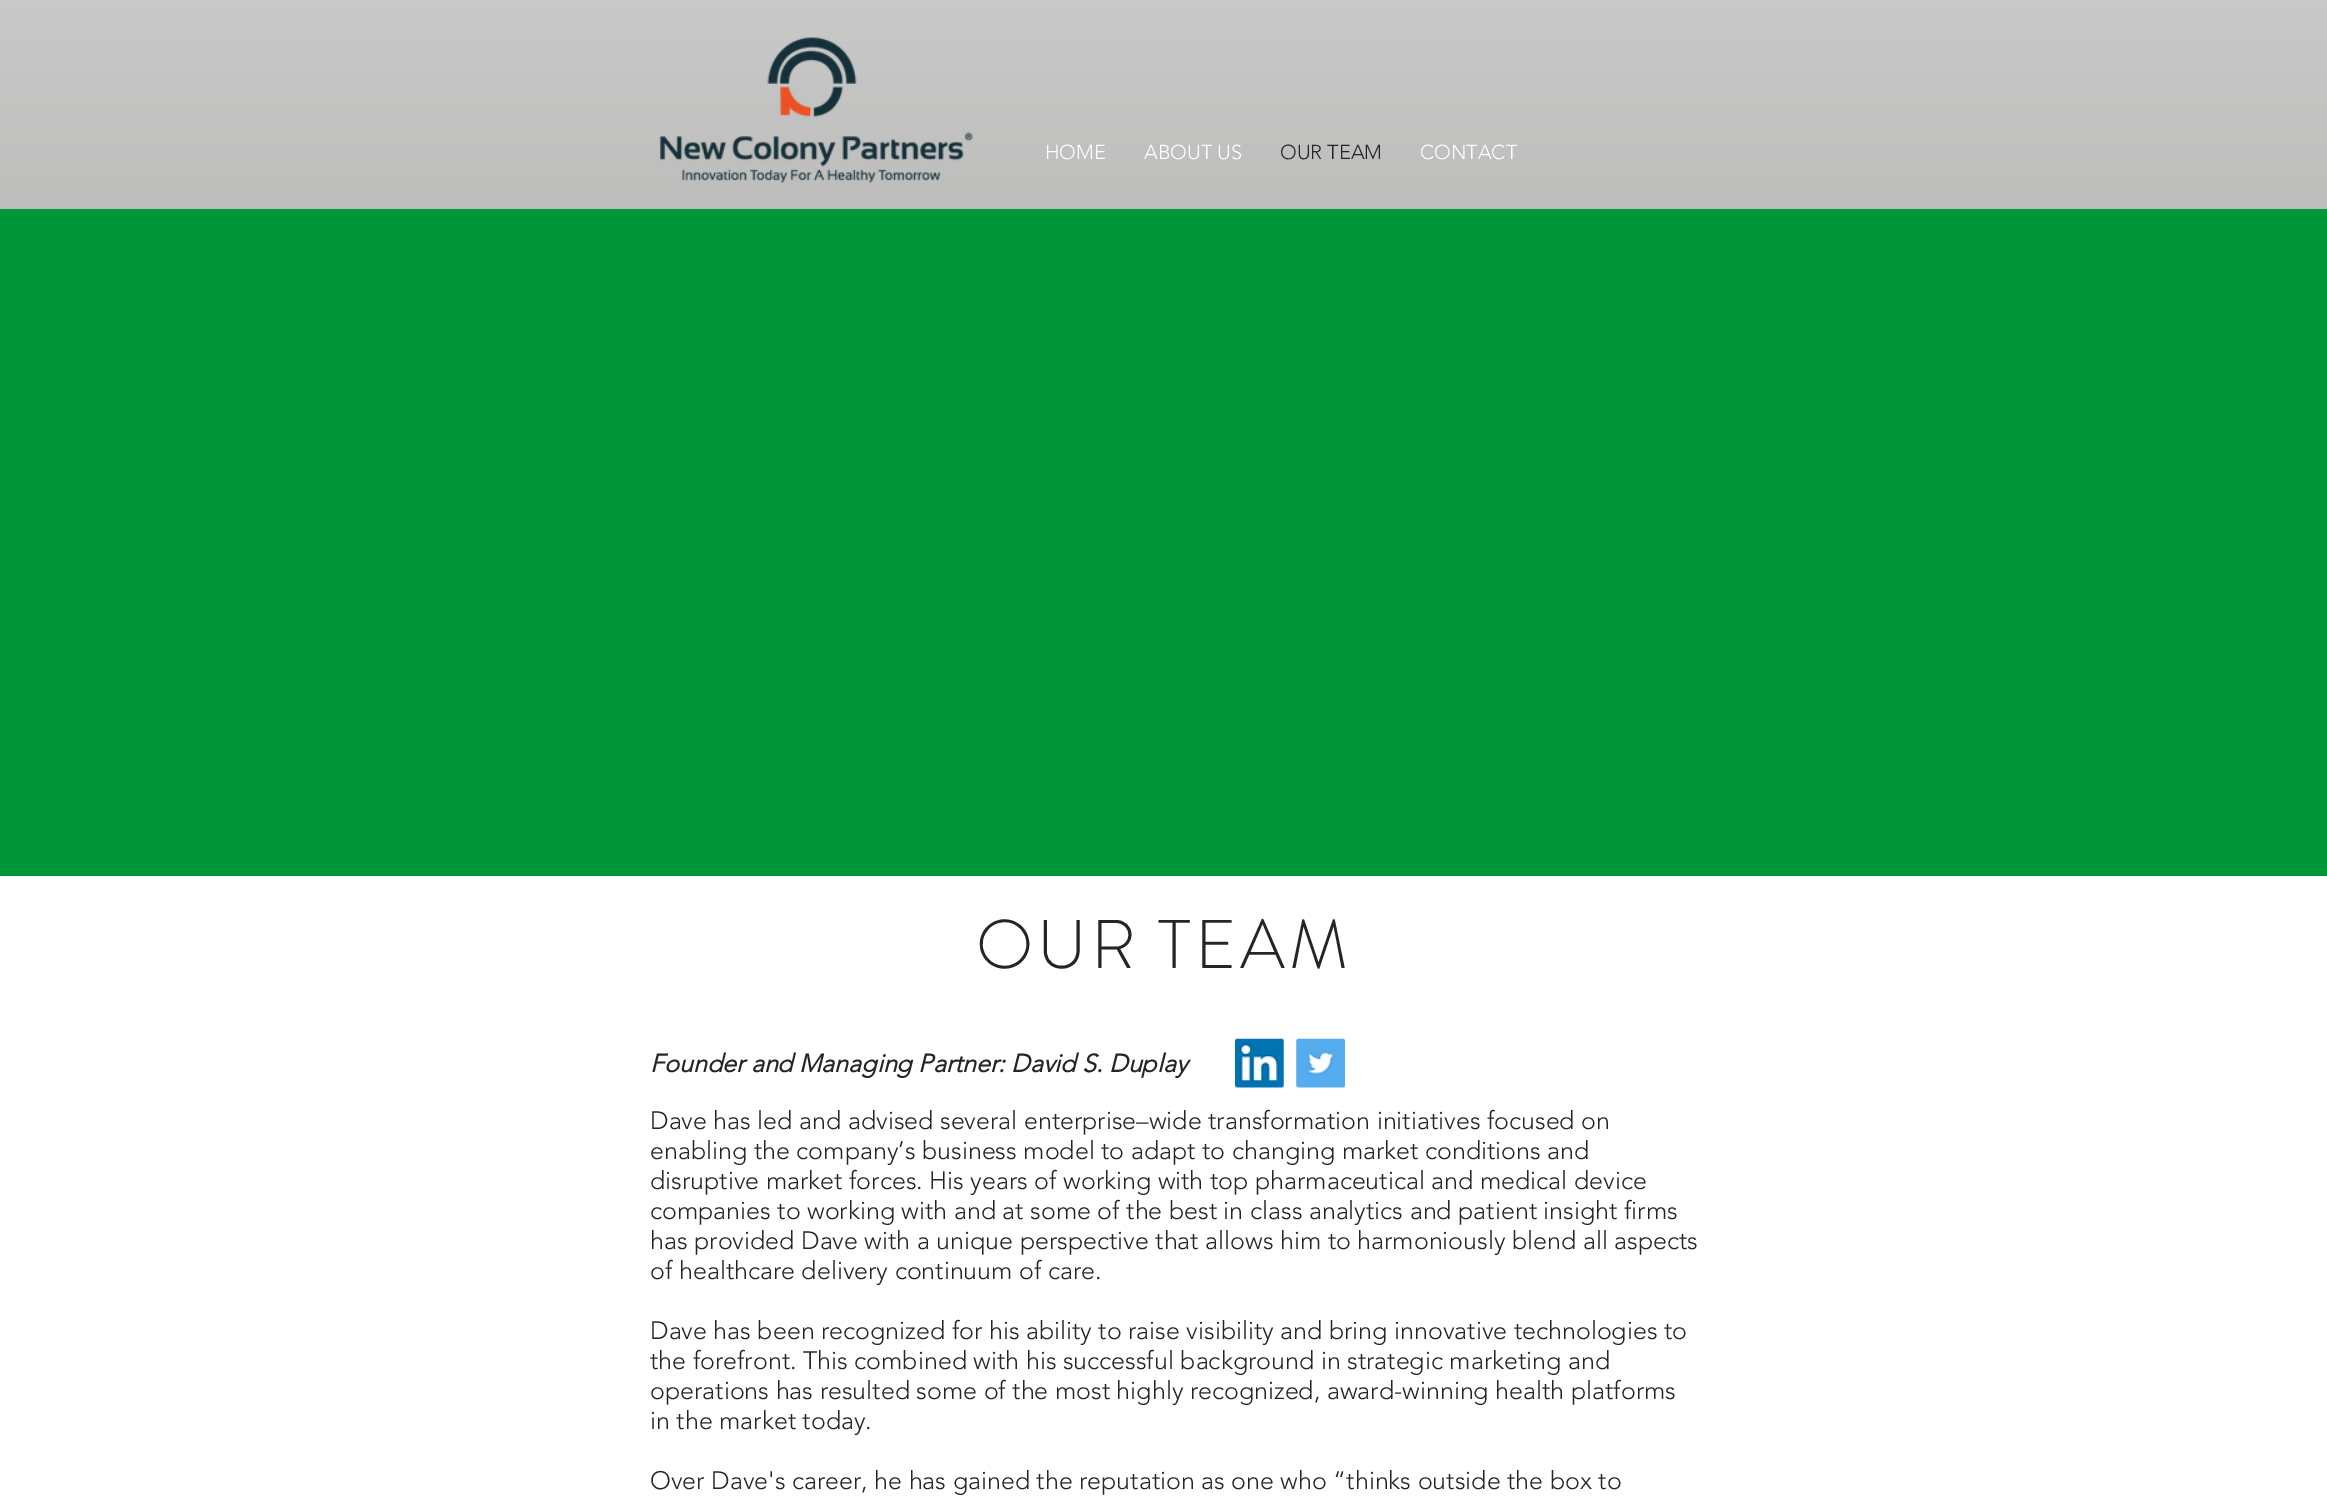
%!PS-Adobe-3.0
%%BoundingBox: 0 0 2327 1496
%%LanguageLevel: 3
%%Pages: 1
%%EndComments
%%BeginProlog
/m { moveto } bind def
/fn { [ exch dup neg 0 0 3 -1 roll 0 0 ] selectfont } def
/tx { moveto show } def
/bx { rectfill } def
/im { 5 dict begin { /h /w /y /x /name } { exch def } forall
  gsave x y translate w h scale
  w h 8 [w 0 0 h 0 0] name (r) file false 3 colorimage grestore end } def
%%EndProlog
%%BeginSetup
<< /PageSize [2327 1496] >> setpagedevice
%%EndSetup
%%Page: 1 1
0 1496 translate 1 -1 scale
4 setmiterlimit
1 setgray
0 0 2327 1496 bx
0.714 0.714 0.71 setrgbcolor
0 0 2327 209 bx
(image1.raw) 0 0 2327 209 im
(image0.raw) 659 37 314 146 im
/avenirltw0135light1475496-Light 20 fn
1 setgray
(HOME) 1045 159 tx
(ABOUT US) 1144 159 tx
0.145 setgray
(OUR TEAM) 1280 159 tx
1 setgray
(CONTACT) 1420 159 tx
0 0.592 0.227 setrgbcolor
0 209 2327 667 bx
/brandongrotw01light-Light 68.75 fn
0.145 setgray
976 968 m 4 0 (OUR TEAM) ashow
(image2.raw) 1235 1038 49 50 im
(image3.raw) 1296 1038 49 50 im
/avenirltw0135light1475496-BoldItalic 25 fn
(Founder and Managing Partner: David S. Duplay) 650 1072 tx
/avenirltw0135light1475496-Light 25 fn
(Dave has led and advised several enterprise–wide transformation initiatives focused on) 650 1129 tx
(enabling the company’s business model to adapt to changing market conditions and) 650 1159 tx
(disruptive market forces. His years of working with top pharmaceutical and medical device) 650 1189 tx
(companies to working with and at some of the best in class analytics and patient insight firms) 650 1219 tx
(has provided Dave with a unique perspective that allows him to harmoniously blend all aspects) 650 1249 tx
(of healthcare delivery continuum of care.) 650 1279 tx
(Dave has been recognized for his ability to raise visibility and bring innovative technologies to) 650 1339 tx
(the forefront. This combined with his successful background in strategic marketing and) 650 1369 tx
(operations has resulted some of the most highly recognized, award-winning health platforms) 650 1399 tx
(in the market today.) 650 1429 tx
(Over Dave's career, he has gained the reputation as one who “thinks outside the box to) 650 1489 tx
showpage
%%EOF
